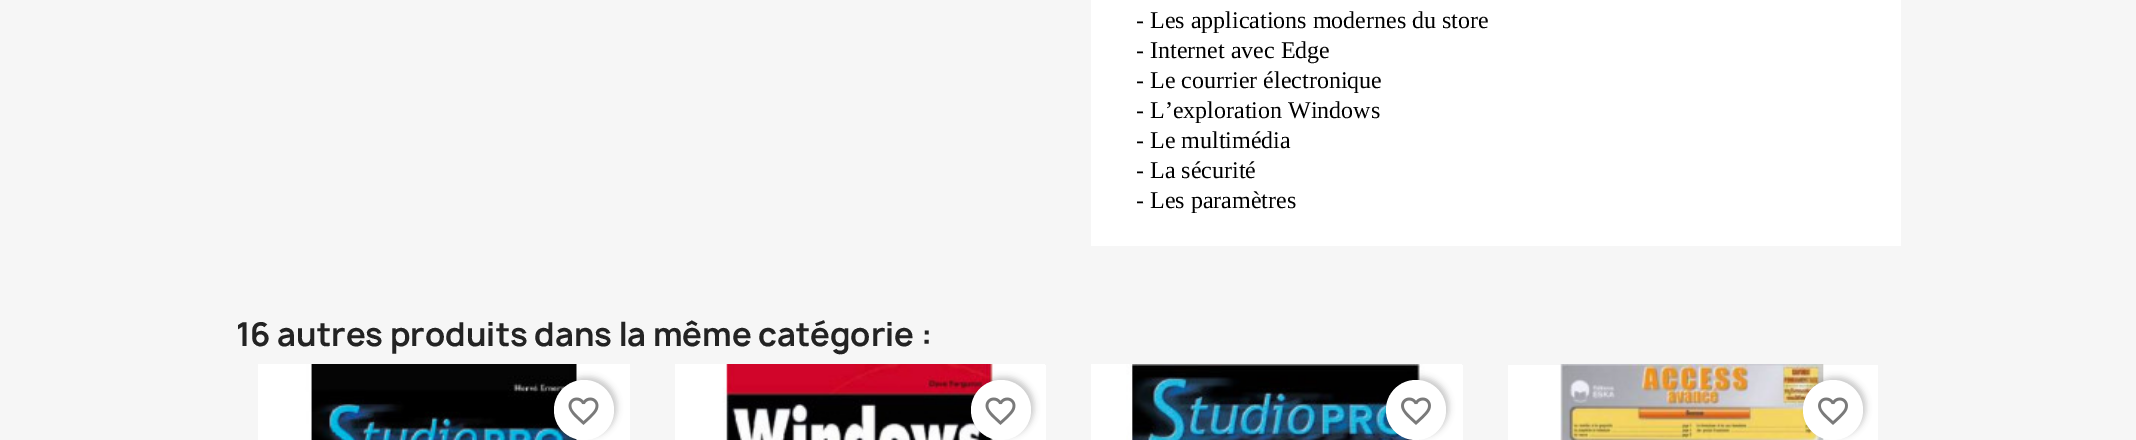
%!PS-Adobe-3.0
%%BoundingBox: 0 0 2136 440
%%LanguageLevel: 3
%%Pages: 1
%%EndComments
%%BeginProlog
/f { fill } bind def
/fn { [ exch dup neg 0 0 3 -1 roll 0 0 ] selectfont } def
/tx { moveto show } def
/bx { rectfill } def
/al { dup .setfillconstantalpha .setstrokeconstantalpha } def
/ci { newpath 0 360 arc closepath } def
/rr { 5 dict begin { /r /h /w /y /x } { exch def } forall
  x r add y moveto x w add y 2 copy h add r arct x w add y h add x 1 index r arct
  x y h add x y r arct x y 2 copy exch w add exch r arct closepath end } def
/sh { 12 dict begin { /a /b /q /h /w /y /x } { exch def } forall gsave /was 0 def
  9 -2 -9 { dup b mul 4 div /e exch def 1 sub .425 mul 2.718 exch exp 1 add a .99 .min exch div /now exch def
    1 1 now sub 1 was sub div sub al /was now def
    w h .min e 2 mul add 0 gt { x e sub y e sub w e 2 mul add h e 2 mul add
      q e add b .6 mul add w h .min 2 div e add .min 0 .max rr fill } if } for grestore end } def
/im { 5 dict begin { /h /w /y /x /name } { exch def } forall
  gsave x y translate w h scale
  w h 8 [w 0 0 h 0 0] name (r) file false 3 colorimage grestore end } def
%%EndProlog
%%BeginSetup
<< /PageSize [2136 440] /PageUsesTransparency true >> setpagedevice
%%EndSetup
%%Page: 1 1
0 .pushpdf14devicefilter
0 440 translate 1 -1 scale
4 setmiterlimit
0.965 setgray
0 0 2136 440 bx
1 setgray
1091 0 810 246 bx
/LiberationSerif-Regular 24 fn
0 setgray
(- Les applications modernes du store) 1136 28 tx
(- Internet avec Edge) 1136 58 tx
(- Le courrier électronique) 1136 88 tx
(- L’exploration Windows) 1136 118 tx
(- Le multimédia) 1136 148 tx
(- La sécurité) 1136 178 tx
(- Les paramètres) 1136 208 tx
/Manrope-Bold 31.5 fn
0.137 setgray
(16 autres produits dans la même catégorie :) 236 346 tx
(image0.raw) 258 364 372 76 im
0 setgray
557 377 60 60 30 3 0.2 sh
1 setgray
584 410 30 ci f
(image1.raw) 568 397 31 28 im
1045 365 1 75 bx
(image2.raw) 675 364 370 76 im
0 setgray
974 377 60 60 30 3 0.2 sh
1 setgray
1001 410 30 ci f
(image1.raw) 985 397 31 28 im
1462 365 1 75 bx
(image3.raw) 1091 364 371 76 im
0 setgray
1389 377 60 60 30 3 0.2 sh
1 setgray
1416 410 30 ci f
(image4.raw) 1401 397 30 28 im
1508 365 370 75 bx
(image5.raw) 1560 364 264 76 im
0 setgray
1806 377 60 60 30 3 0.2 sh
1 setgray
1833 410 30 ci f
(image4.raw) 1818 397 30 28 im
.poppdf14devicefilter showpage
%%EOF
